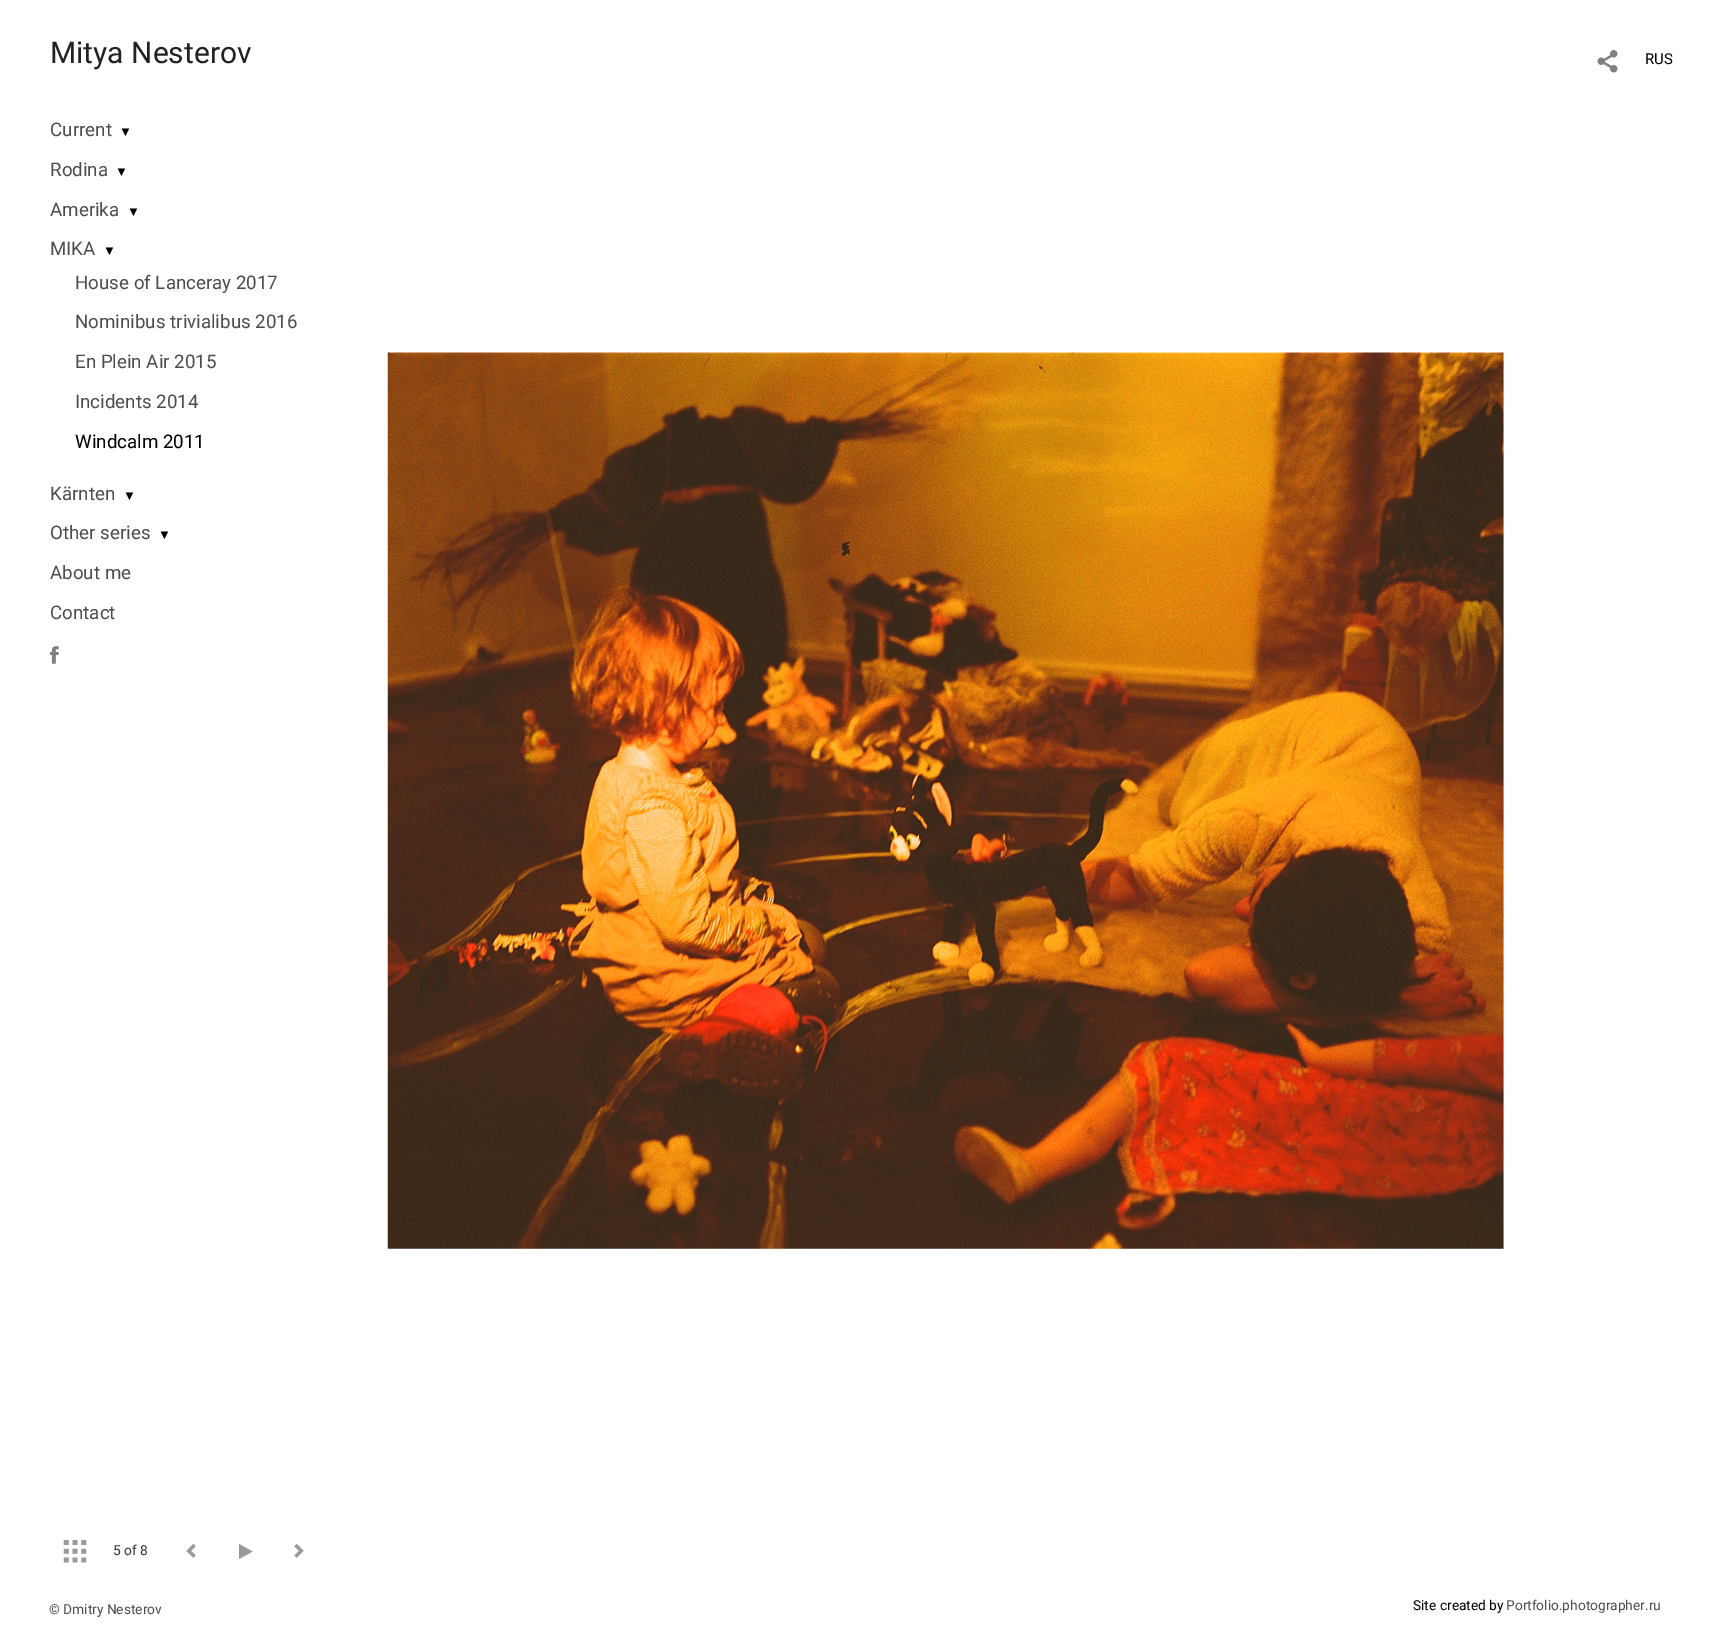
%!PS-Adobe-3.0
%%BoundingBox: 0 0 1710 1633
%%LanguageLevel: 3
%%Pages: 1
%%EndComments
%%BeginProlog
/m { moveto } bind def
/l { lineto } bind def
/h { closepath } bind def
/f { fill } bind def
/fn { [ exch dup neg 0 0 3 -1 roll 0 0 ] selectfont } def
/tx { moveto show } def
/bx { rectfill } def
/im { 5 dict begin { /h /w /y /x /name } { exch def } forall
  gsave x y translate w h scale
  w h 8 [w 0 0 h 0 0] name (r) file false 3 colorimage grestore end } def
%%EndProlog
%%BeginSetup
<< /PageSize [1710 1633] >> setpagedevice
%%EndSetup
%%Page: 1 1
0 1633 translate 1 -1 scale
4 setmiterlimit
1 setgray
0 0 1710 1633 bx
/Roboto-Regular 30 fn
0.133 setgray
(Mitya Nesterov) 50 63 tx
/Roboto-Regular 18.75 fn
0.302 setgray
(Current) 50 136 tx
/LiberationSerif-Regular 13 fn
0 setgray
(▼) 119 136 tx
/Roboto-Regular 18.75 fn
0.302 setgray
(Rodina) 50 176 tx
/LiberationSerif-Regular 13 fn
0 setgray
(▼) 115 176 tx
/Roboto-Regular 18.75 fn
0.302 setgray
(Amerika) 50 216 tx
/LiberationSerif-Regular 13 fn
0 setgray
(▼) 127 216 tx
/Roboto-Regular 18.75 fn
0.302 setgray
(MIKA) 50 255 tx
/LiberationSerif-Regular 13 fn
0 setgray
(▼) 103 255 tx
/Roboto-Regular 18.75 fn
0.302 setgray
(House of Lanceray 2017) 75 289 tx
(Nominibus trivialibus 2016) 75 328 tx
(En Plein Air 2015) 75 368 tx
(Incidents 2014) 75 408 tx
0 setgray
(Windcalm 2011) 75 448 tx
0.302 setgray
(Kärnten) 50 500 tx
/LiberationSerif-Regular 13 fn
0 setgray
(▼) 123 500 tx
/Roboto-Regular 18.75 fn
0.302 setgray
(Other series) 50 539 tx
/LiberationSerif-Regular 13 fn
0 setgray
(▼) 158 539 tx
/Roboto-Regular 18.75 fn
0.302 setgray
(About me) 50 579 tx
(Contact) 50 619 tx
(image0.raw) 50 646 9 18 im
(image1.raw) 63 1540 24 23 im
/Roboto-Regular 13.75 fn
0.2 setgray
(5 of 8) 113 1555 tx
(image2.raw) 186 1543 10 15 im
0.6 setgray
252.5 1551.5 m 239 1559 l 239 1544 l h f
(image3.raw) 294 1543 10 15 im
(image4.raw) 1597 50 21 23 im
/Roboto-Regular 15 fn
0 setgray
(RUS) 1645 64 tx
(image5.raw) 387 352 1117 897 im
/Roboto-Regular 13.75 fn
0.302 setgray
(© Dmitry Nesterov) 49 1614 tx
0 setgray
(Site created by) 1413 1610 tx
0.302 setgray
(Portfolio.photographer.ru) 1506 1610 tx
showpage
%%EOF
